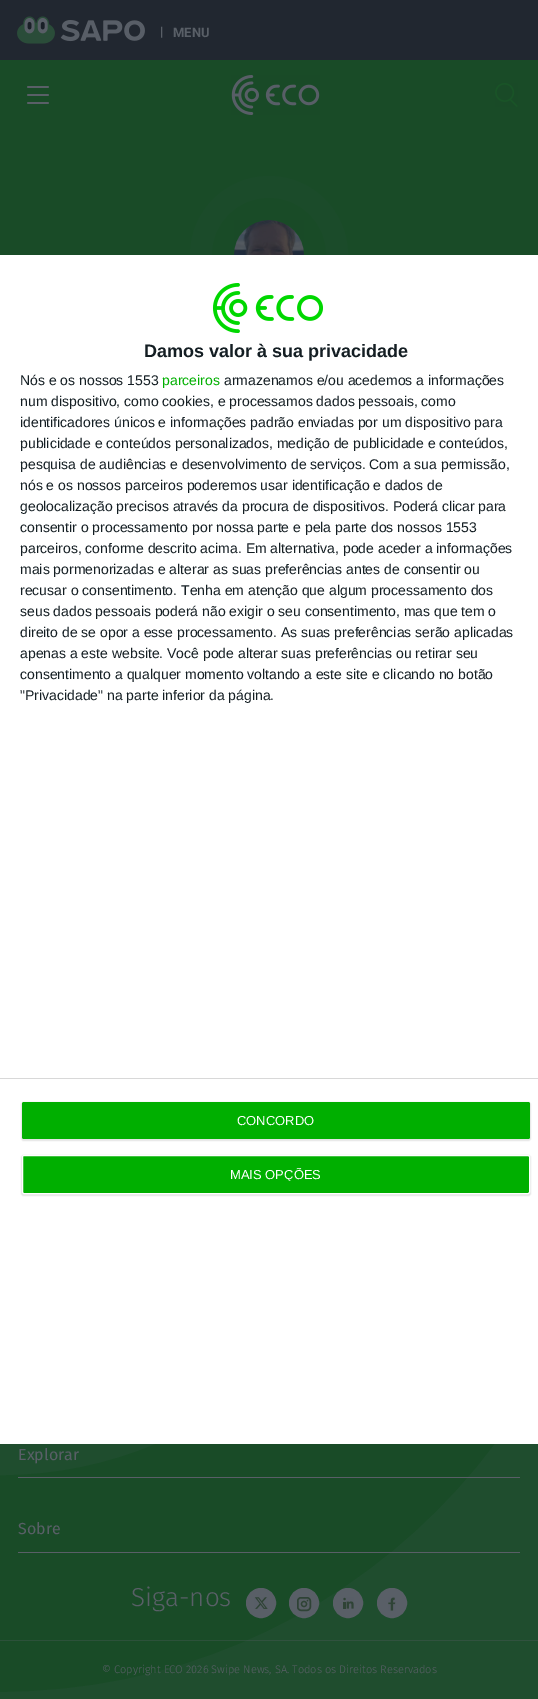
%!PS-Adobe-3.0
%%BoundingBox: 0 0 538 1699
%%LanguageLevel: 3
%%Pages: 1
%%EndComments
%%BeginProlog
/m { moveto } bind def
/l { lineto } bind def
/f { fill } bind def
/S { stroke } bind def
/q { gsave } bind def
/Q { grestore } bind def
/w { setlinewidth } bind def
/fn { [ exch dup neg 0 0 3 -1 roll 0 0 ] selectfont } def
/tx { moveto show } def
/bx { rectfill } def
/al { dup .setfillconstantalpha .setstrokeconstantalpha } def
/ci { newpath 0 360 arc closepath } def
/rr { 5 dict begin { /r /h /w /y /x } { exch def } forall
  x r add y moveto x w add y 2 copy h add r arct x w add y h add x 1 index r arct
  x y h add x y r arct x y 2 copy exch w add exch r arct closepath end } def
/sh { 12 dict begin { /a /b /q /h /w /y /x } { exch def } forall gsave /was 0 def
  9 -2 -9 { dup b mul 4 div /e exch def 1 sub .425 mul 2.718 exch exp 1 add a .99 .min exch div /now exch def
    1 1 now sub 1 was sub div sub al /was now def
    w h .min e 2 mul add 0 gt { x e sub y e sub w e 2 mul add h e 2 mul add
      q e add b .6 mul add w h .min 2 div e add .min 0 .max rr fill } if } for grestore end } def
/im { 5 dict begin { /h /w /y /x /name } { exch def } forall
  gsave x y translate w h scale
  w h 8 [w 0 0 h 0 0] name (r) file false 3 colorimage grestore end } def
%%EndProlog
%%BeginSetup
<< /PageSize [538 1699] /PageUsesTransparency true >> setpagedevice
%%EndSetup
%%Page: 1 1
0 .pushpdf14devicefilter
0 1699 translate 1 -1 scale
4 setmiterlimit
0.098 0.294 0.153 setrgbcolor
0 0 538 1699 bx
0.129 0.153 0.188 setrgbcolor
0 0 538 60 bx
(image0.raw) 17 16 128 28 im
/Roboto-Bold 13 fn
0.349 0.373 0.404 setrgbcolor
(|) 160 36 tx
(MENU) 173 37 tx
1.8 w
1 setlinecap
1 setlinejoin
28 87 m 48 87 l 28 95 m 48 95 l 28 103 m 48 103 l S
(image1.raw) 231 75 89 40 im
(image2.raw) 495 83 23 24 im
0.106 0.294 0.165 setrgbcolor
44 w
0 setlinecap
0 setlinejoin
269 255 57 ci S
0.098 0.294 0.153 setrgbcolor
22 w
269 255 46 ci S
(image3.raw) 234 220 70 35 im
0.122 0.302 0.18 setrgbcolor
239 w
0 1074 281.5 ci S
q
0 1074 538 625 rectclip
237 w
0 1074 736.5 ci S
Q
0.349 0.373 0.404 setrgbcolor
18 1477 502 1 bx
/FiraSans-Regular 16 fn
(Explorar) 18 1460 tx
18 1552 502 1 bx
(Sobre) 18 1534 tx
/FiraSans-Light 26 fn
(Siga-nos) 131 1606 tx
261 1603 14.5 ci q f Q
1 w
S
(image4.raw) 254 1597 14 12 im
304 1603 14.5 ci q f Q
S
0.184 0.263 0.212 setrgbcolor
1.5 w
297.75 1597.75 12.5 12.5 3.25 rr S
1.3 w
304 1604 2.5 ci S
307.5 1600.6 0.7 ci f
0.349 0.373 0.404 setrgbcolor
348 1603 14.5 ci q f Q
1 w
S
(image5.raw) 343 1597 11 12 im
392 1603 14.5 ci q f Q
S
(image6.raw) 388 1597 8 14 im
0.3 al
0 1640 538 1 bx
/FiraSans-Light 11 fn
1 al
(© Copyright ECO 2026 Swipe News, SA. Todos os Direitos Reservados) 102 1673 tx
1 setgray
0 255 538 1189 bx
(image7.raw) 213 283 110 50 im
/LiberationSans-Bold 18 fn
0.078 0.118 0.137 setrgbcolor
(Damos valor à sua privacidade) 144 357 tx
/LiberationSans-Regular 14 fn
(Nós e os nossos 1553) 20 385 tx
0 0.686 0 setrgbcolor
(parceiros) 162 385 tx
0.078 0.118 0.137 setrgbcolor
(armazenamos e/ou acedemos a informações) 224 385 tx
(num dispositivo, como cookies, e processamos dados pessoais, como) 20 406 tx
(identificadores únicos e informações padrão enviadas por um dispositivo para) 20 427 tx
(publicidade e conteúdos personalizados, medição de publicidade e conteúdos,) 20 448 tx
(pesquisa de audiências e desenvolvimento de serviços. Com a sua permissão,) 20 469 tx
(nós e os nossos parceiros poderemos usar identificação e dados de) 20 490 tx
(geolocalização precisos através da procura de dispositivos. Poderá clicar para) 20 511 tx
(consentir o processamento por nossa parte e pela parte dos nossos 1553) 20 532 tx
(parceiros, conforme descrito acima. Em alternativa, pode aceder a informações) 20 553 tx
(mais pormenorizadas e alterar as suas preferências antes de consentir ou) 20 574 tx
(recusar o consentimento. Tenha em atenção que algum processamento dos) 20 595 tx
(seus dados pessoais poderá não exigir o seu consentimento, mas que tem o) 20 616 tx
(direito de se opor a esse processamento. As suas preferências serão aplicadas) 20 637 tx
(apenas a este website. Você pode alterar suas preferências ou retirar seu) 20 658 tx
(consentimento a qualquer momento voltando a este site e clicando no botão) 20 679 tx
("Privacidade" na parte inferior da página.) 20 700 tx
0.847 setgray
0 1078 538 1 bx
0 setgray
21 1102 510 39 3 0.5 0.1 sh
0 0.686 0 setrgbcolor
22 1102 508 37 2 rr f
/LiberationSans-Regular 13 fn
1 setgray
(CONCORDO) 237 1125 tx
0 setgray
21 1155 510 41 3 0.5 0.1 sh
0 0.686 0 setrgbcolor
22.5 1155.5 507 38 1.5 rr q f Q
1 setgray
S
q
230 1168 91 13 rectclip
(MAIS OPÇÕES) 230 1179 tx
Q
.poppdf14devicefilter showpage
%%EOF
